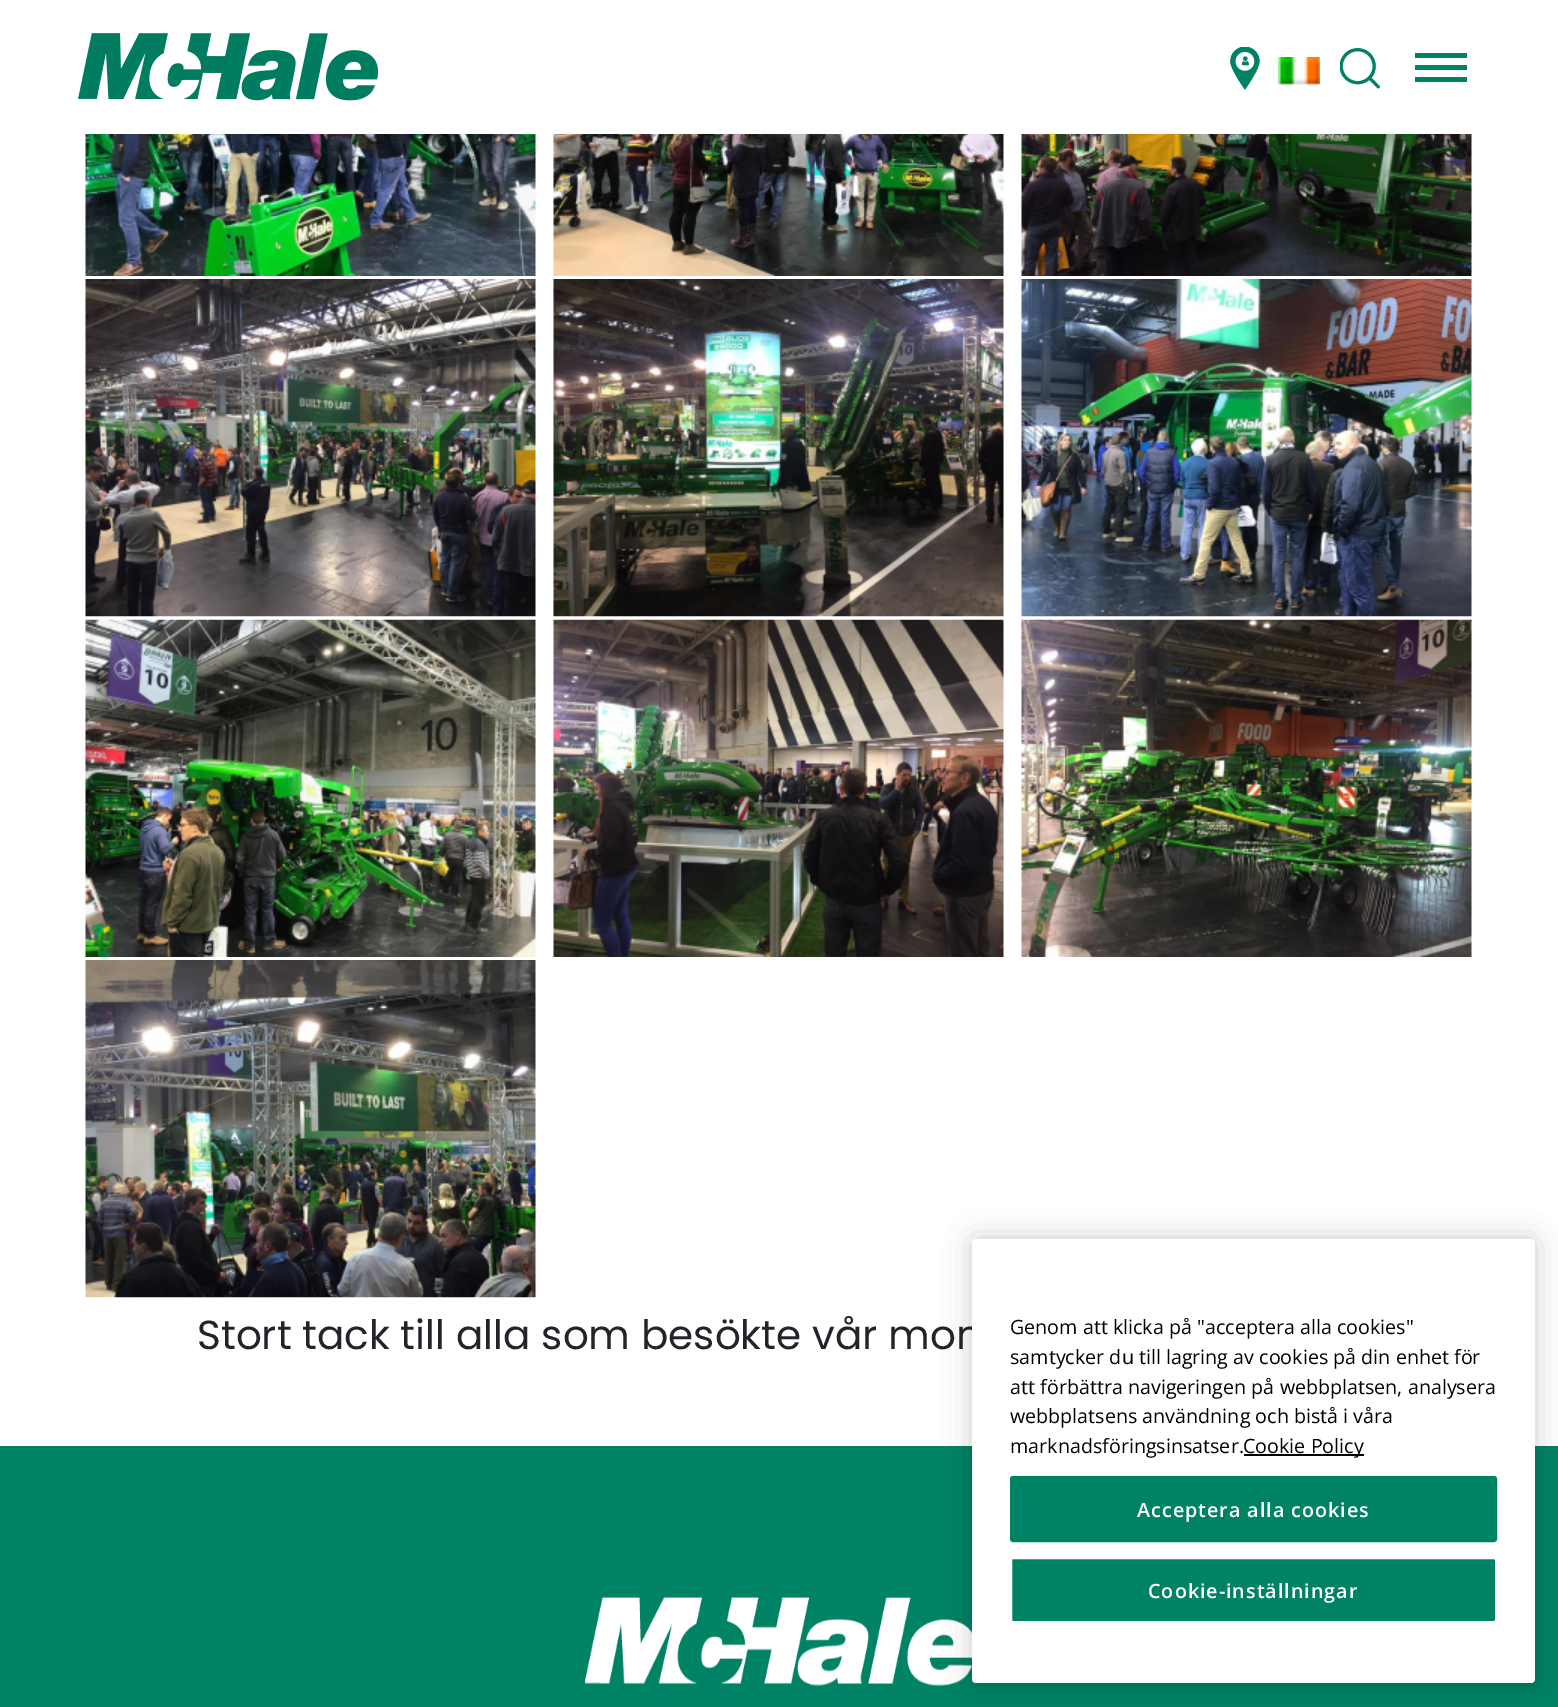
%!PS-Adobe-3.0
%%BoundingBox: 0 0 1558 1707
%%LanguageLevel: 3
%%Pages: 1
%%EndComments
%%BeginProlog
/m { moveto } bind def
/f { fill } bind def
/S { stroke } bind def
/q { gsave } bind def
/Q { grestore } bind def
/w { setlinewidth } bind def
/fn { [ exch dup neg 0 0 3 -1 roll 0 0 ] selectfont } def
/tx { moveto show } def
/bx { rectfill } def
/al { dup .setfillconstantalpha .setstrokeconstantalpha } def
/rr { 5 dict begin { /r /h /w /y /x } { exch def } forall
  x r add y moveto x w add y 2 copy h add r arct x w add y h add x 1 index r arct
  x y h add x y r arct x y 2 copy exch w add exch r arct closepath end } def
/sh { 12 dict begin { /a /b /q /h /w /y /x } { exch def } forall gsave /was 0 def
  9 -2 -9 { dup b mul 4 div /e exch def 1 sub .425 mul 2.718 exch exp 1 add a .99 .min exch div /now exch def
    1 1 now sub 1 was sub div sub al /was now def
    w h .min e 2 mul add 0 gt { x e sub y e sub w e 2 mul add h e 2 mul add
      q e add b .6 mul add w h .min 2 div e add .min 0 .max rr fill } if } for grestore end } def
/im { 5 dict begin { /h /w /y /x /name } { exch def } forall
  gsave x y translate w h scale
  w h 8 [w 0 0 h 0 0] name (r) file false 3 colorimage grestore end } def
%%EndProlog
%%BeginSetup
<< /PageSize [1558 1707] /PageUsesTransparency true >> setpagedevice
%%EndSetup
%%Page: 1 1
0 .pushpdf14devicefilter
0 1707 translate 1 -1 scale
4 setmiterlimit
1 setgray
0 0 1558 1707 bx
(image0.raw) 78 33 300 68 im
(image1.raw) 1230 47 30 43 im
(image2.raw) 1278 57 42 28 im
(image3.raw) 1340 48 40 41 im
0 0.51 0.396 setrgbcolor
1415 53 52 5 bx
1415 65 52 5 bx
1415 77 52 5 bx
(image4.raw) 85 134 451 142 im
(image5.raw) 553 134 451 142 im
(image6.raw) 1021 134 451 142 im
(image7.raw) 85 279 451 338 im
(image8.raw) 553 279 451 338 im
(image9.raw) 1021 279 451 338 im
(image10.raw) 85 619 451 338 im
(image11.raw) 553 619 451 338 im
(image12.raw) 1021 619 451 338 im
(image13.raw) 85 960 451 338 im
/Poppins-Regular 40.5 fn
0.129 0.145 0.161 setrgbcolor
(Stort tack till alla som besökte vår mon) 197 1349 tx
0 0.51 0.396 setrgbcolor
0 1446 1558 261 bx
(image14.raw) 585 1597 387 89 im
0 setgray
972 1239 563 444 4 13.5 0.2 sh
1 setgray
972 1239 563 444 4 rr f
/OpenSans-Regular 19.7 fn
0 setgray
(Genom att klicka på "acceptera alla cookies") 1010 1334 tx
(samtycker du till lagring av cookies på din enhet för) 1010 1364 tx
(att förbättra navigeringen på webbplatsen, analysera) 1010 1394 tx
(webbplatsens användning och bistå i våra) 1010 1423 tx
(marknadsföringsinsatser.) 1010 1453 tx
1244 1454 120 2 bx
(Cookie Policy) 1243 1453 tx
0 0.51 0.396 setrgbcolor
1011 1477 485 64 2 rr q f Q
2 w
S
/OpenSans-SemiBold 19.7 fn
1 setgray
1137 1517 m 1 0 (Acceptera alla cookies) ashow
0 0.51 0.396 setrgbcolor
1011 1558 485 64 2 rr q f Q
1 setgray
S
1148 1598 m 1 0 (Cookie-inställningar) ashow
.poppdf14devicefilter showpage
%%EOF
